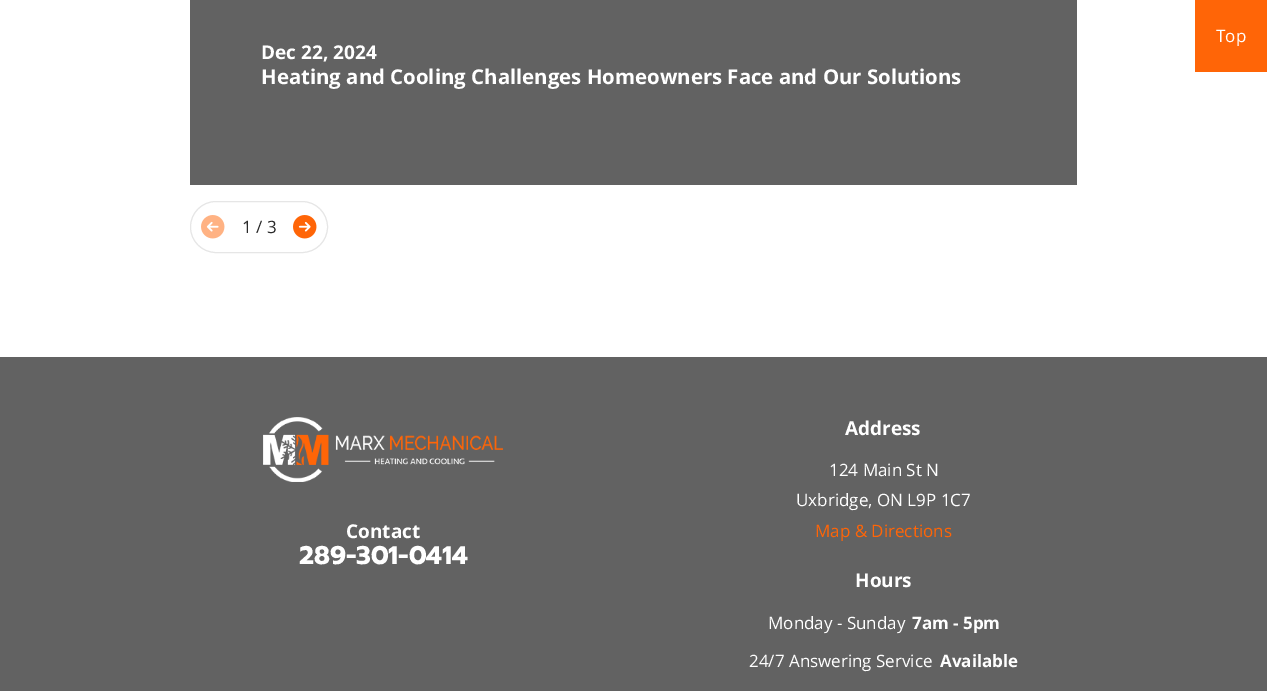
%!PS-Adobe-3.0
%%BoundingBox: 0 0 1267 691
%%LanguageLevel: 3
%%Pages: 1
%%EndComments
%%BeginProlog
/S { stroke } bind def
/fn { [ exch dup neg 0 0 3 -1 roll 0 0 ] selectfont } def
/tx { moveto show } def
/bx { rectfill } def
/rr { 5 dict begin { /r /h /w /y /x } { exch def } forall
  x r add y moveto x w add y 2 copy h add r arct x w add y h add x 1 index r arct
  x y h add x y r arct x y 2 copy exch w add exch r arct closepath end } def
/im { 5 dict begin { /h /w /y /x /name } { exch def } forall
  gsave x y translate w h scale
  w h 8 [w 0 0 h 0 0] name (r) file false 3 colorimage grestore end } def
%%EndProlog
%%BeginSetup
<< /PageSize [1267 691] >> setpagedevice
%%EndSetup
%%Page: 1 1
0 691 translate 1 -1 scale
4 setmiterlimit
1 setgray
0 0 1267 691 bx
1 0.396 0.027 setrgbcolor
1195 0 72 72 bx
/OpenSans-Regular 17 fn
1 setgray
(Top) 1216 42 tx
0.384 setgray
190 0 887 185 bx
/OpenSans-Bold 19 fn
1 setgray
(Dec 22, 2024) 261 59 tx
/OpenSans-Bold 20.4 fn
(Heating and Cooling Challenges Homeowners Face and Our Solutions) 261 84 tx
0.902 setgray
190.5 201.5 137 51 25.5 rr S
(image0.raw) 201 215 24 24 im
/OpenSans-Regular 17 fn
0.165 setgray
(1 / 3) 242 233 tx
(image1.raw) 293 215 24 24 im
0.384 setgray
0 357 1267 334 bx
(image2.raw) 263 417 240 65 im
/OpenSans-Bold 19 fn
1 setgray
(Contact) 346 538 tx
/Prompt-Bold 25.5 fn
(289-301-0414) 299 564 tx
/OpenSans-Bold 19 fn
(Address) 845 435 tx
/OpenSans-Regular 17 fn
(124 Main St N) 829 476 tx
(Uxbridge, ON L9P 1C7) 796 506 tx
1 0.396 0.027 setrgbcolor
(Map & Directions) 815 537 tx
/OpenSans-Bold 19 fn
1 setgray
(Hours) 855 587 tx
/OpenSans-Regular 17 fn
(Monday - Sunday) 768 629 tx
/OpenSans-Bold 17 fn
(7am - 5pm) 912 629 tx
/OpenSans-Regular 17 fn
(24/7 Answering Service) 749 667 tx
/OpenSans-Bold 17 fn
(Available) 940 667 tx
showpage
%%EOF
